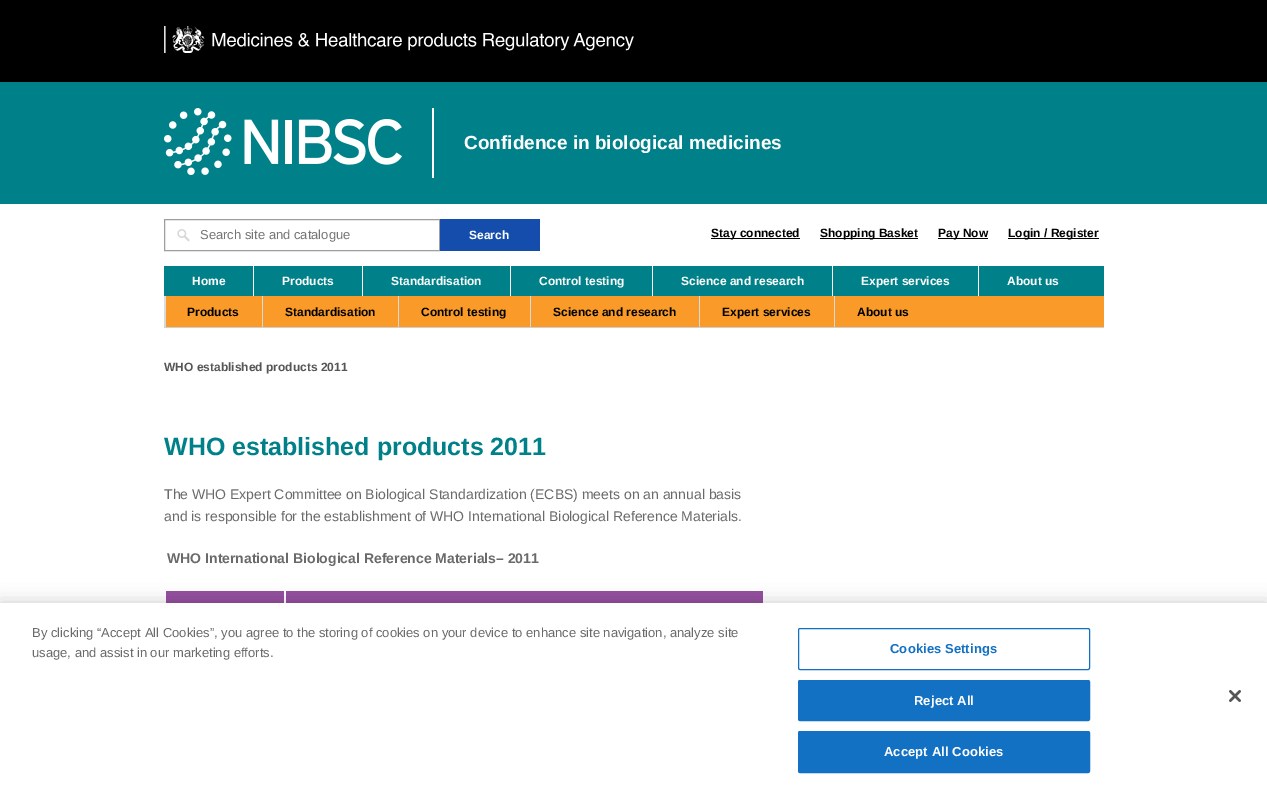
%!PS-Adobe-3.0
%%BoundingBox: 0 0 1267 793
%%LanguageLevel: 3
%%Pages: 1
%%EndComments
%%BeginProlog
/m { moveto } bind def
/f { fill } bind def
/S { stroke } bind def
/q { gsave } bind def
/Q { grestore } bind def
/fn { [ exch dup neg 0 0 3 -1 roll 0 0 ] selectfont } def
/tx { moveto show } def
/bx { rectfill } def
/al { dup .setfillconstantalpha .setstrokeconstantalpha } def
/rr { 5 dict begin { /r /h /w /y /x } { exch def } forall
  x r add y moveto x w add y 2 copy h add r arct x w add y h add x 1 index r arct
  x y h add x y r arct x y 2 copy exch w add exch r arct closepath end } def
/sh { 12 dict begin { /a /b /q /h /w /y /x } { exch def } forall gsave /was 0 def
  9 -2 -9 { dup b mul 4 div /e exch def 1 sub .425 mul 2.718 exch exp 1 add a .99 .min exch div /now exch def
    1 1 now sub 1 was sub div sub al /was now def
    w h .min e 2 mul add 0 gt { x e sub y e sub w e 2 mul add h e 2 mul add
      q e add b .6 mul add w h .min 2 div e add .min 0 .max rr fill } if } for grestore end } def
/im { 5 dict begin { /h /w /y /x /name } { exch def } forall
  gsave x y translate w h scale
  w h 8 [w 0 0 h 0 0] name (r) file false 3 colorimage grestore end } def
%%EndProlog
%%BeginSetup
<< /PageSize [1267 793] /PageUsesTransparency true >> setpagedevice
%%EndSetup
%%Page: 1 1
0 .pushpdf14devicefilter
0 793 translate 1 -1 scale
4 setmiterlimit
1 setgray
0 0 1267 793 bx
0 setgray
0 0 1267 82 bx
(image0.raw) 164 26 470 27 im
0 0.506 0.541 setrgbcolor
0 82 1267 122 bx
1 setgray
432 108 2 70 bx
(image1.raw) 164 108 238 67 im
/LiberationSans-Bold 19 fn
(Confidence in biological medicines) 464 149 tx
(image2.raw) 177 229 13 13 im
0.62 setgray
164.5 219.5 275 31 rectstroke
/LiberationSans-Regular 13 fn
0.459 setgray
(Search site and catalogue) 200 239 tx
0.082 0.302 0.675 setrgbcolor
440 219 100 32 bx
/LiberationSans-Bold 12 fn
1 setgray
(Search) 469 239 tx
0 setgray
711 238 89 1 bx
(Stay connected) 711 237 tx
820 238 98 1 bx
(Shopping Basket) 820 237 tx
938 238 50 1 bx
(Pay Now) 938 237 tx
1008 238 91 1 bx
(Login / Register) 1008 237 tx
0 0.506 0.541 setrgbcolor
164 266 940 30 bx
1 setgray
253 266 1 30 bx
(Home) 192 285 tx
362 266 1 30 bx
(Products) 282 285 tx
510 266 1 30 bx
(Standardisation) 391 285 tx
652 266 1 30 bx
(Control testing) 539 285 tx
832 266 1 30 bx
(Science and research) 681 285 tx
978 266 1 30 bx
(Expert services) 861 285 tx
(About us) 1007 285 tx
0.976 0.604 0.161 setrgbcolor
835 296 269 31 bx
0.812 setgray
164 327 940 1 bx
0.976 0.604 0.161 setrgbcolor
166 296 96 31 bx
(image3.raw) 164 296 2 31 im
0 setgray
(Products) 187 316 tx
0.976 0.604 0.161 setrgbcolor
263 296 135 31 bx
(image4.raw) 262 296 1 31 im
0 setgray
(Standardisation) 285 316 tx
0.976 0.604 0.161 setrgbcolor
399 296 131 31 bx
(image4.raw) 398 296 1 31 im
0 setgray
(Control testing) 421 316 tx
0.976 0.604 0.161 setrgbcolor
531 296 168 31 bx
(image4.raw) 530 296 1 31 im
0 setgray
(Science and research) 553 316 tx
0.976 0.604 0.161 setrgbcolor
700 296 134 31 bx
(image4.raw) 699 296 1 31 im
0 setgray
(Expert services) 722 316 tx
(image4.raw) 834 296 1 31 im
(About us) 857 316 tx
0.333 setgray
(WHO established products 2011) 164 371 tx
/LiberationSans-Bold 25 fn
0 0.506 0.541 setrgbcolor
(WHO established products 2011) 164 455 tx
/LiberationSans-Regular 14 fn
0.416 setgray
(The WHO Expert Committee on Biological Standardization \(ECBS\) meets on an annual basis) 164 499 tx
(and is responsible for the establishment of WHO International Biological Reference Materials.) 164 521 tx
/LiberationSans-Bold 14 fn
(WHO International Biological Reference Materials– 2011) 167 563 tx
0.576 0.314 0.62 setrgbcolor
166 591 118 12 bx
286 591 477 12 bx
0 setgray
0 603 1267 190 0 9 0.2 sh
1 setgray
0 603 1267 190 bx
/LiberationSans-Regular 13 fn
0.416 setgray
(By clicking “Accept All Cookies”, you agree to the storing of cookies on your device to enhance site navigation, analyze site) 32 637 tx
(usage, and assist in our marketing efforts.) 32 657 tx
0.075 0.443 0.765 setrgbcolor
798.5 628.5 291 41 1.5 rr S
/LiberationSans-Bold 13 fn
890 653 m 0.1 0 (Cookies Settings) ashow
798.5 680.5 291 40 1.5 rr q f Q
S
1 setgray
914 705 m 0.1 0 (Reject All) ashow
0.075 0.443 0.765 setrgbcolor
798.5 731.5 291 41 1.5 rr q f Q
S
1 setgray
884 756 m 0.1 0 (Accept All Cookies) ashow
(image5.raw) 1229 690 12 12 im
.poppdf14devicefilter showpage
%%EOF
